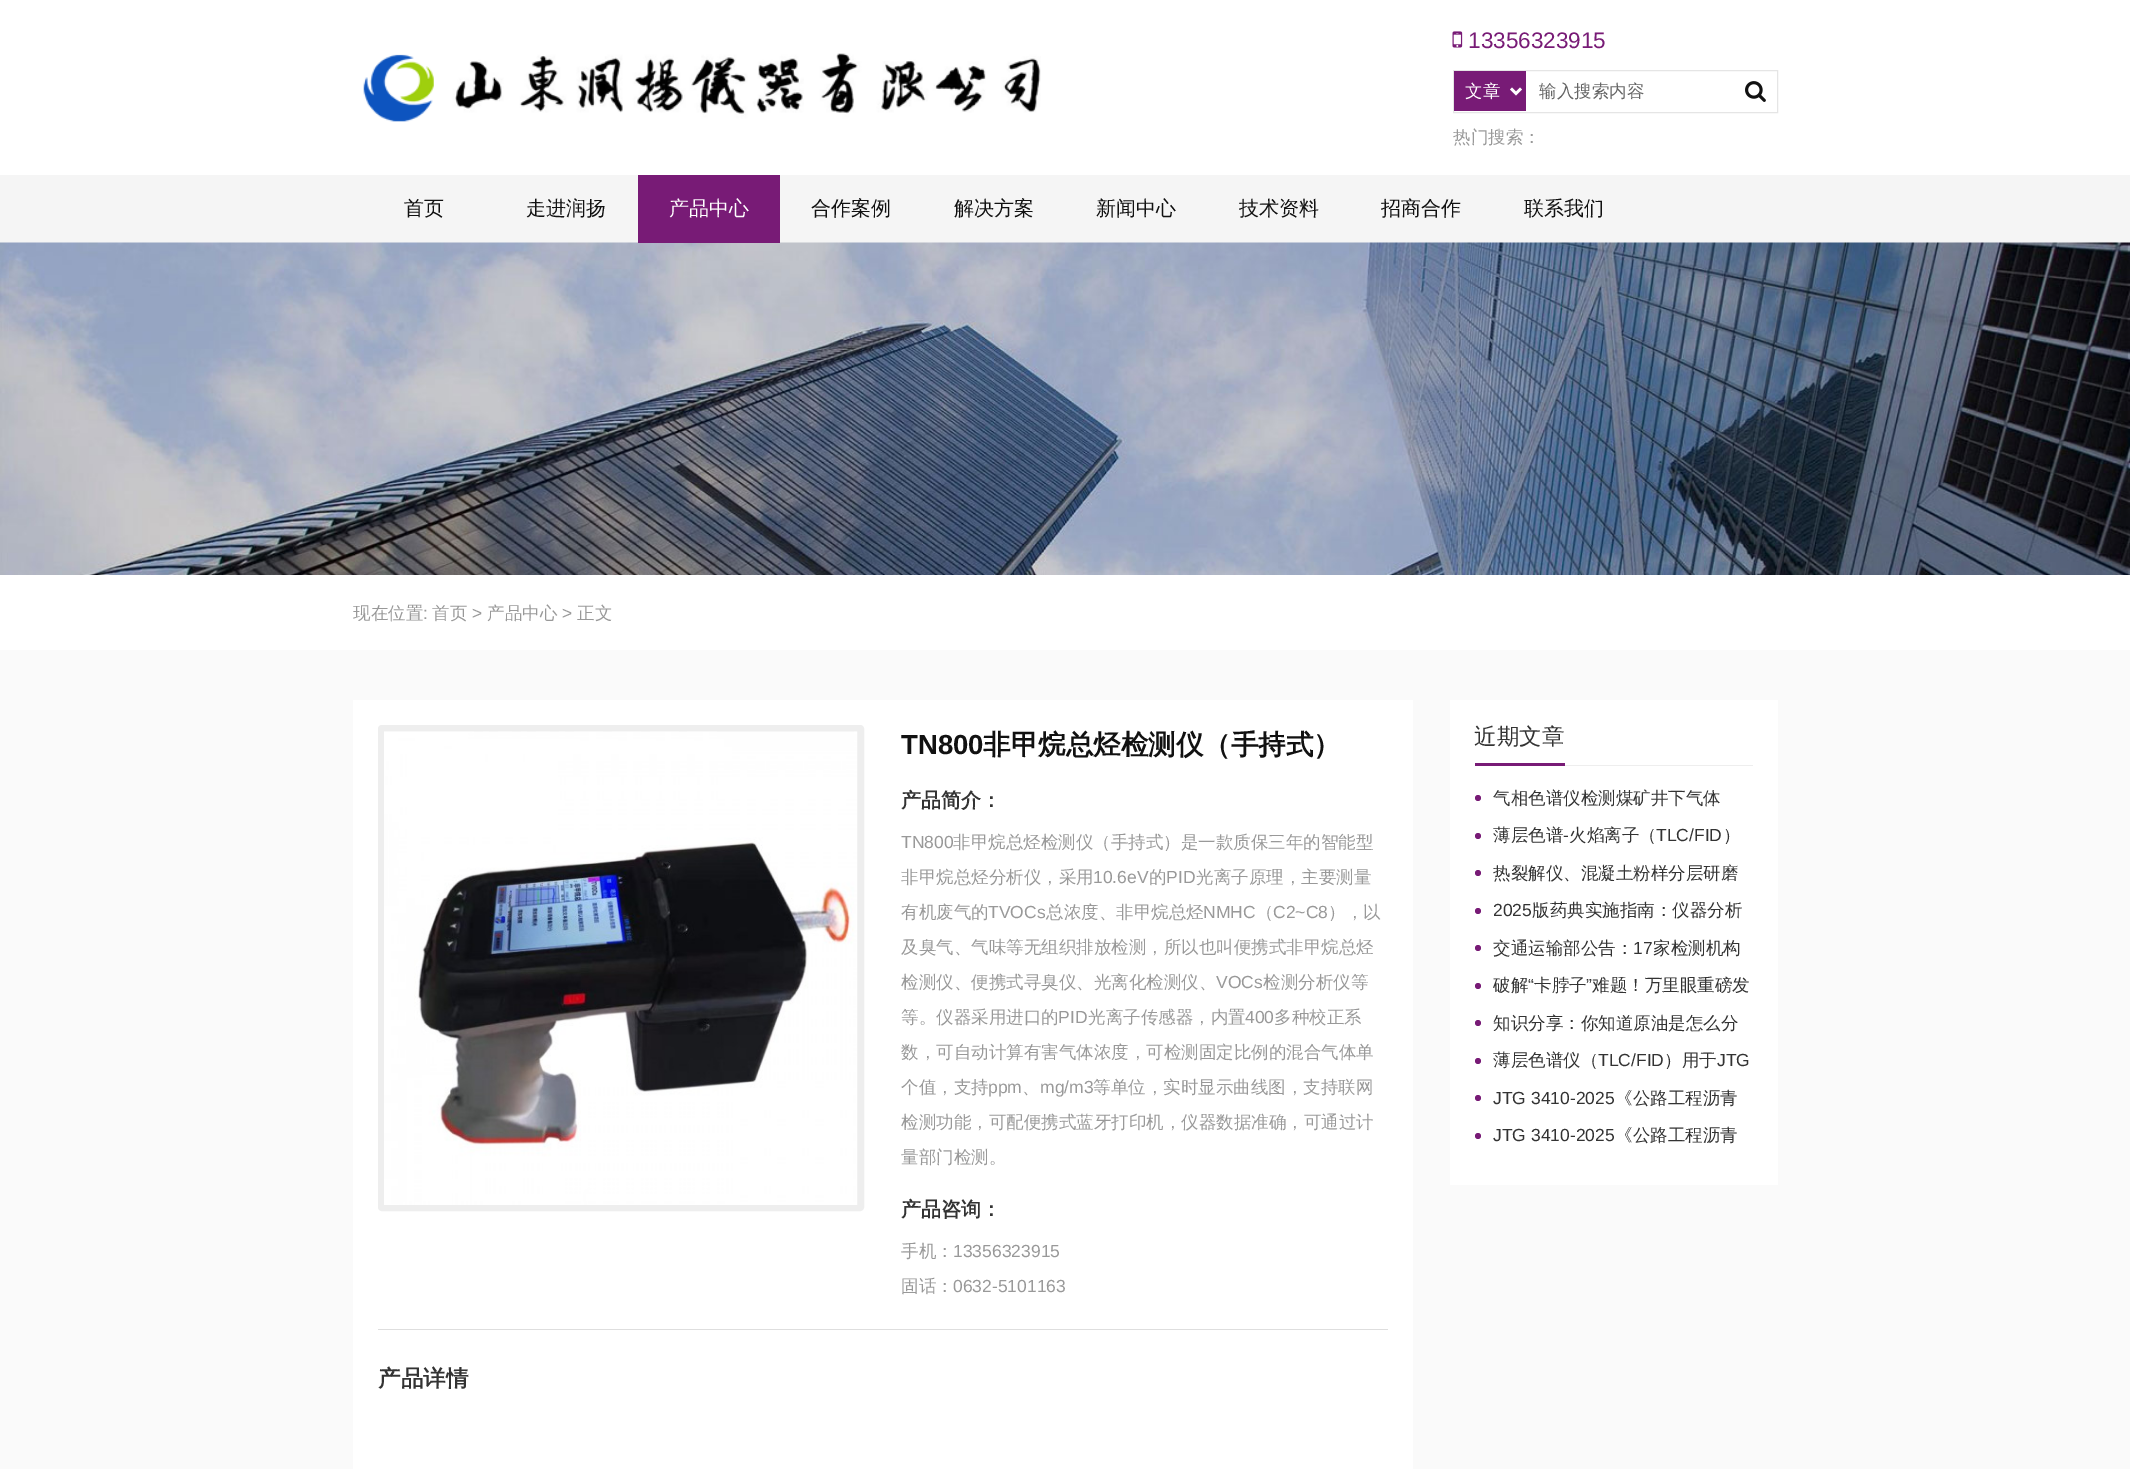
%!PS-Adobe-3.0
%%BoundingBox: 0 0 2130 1469
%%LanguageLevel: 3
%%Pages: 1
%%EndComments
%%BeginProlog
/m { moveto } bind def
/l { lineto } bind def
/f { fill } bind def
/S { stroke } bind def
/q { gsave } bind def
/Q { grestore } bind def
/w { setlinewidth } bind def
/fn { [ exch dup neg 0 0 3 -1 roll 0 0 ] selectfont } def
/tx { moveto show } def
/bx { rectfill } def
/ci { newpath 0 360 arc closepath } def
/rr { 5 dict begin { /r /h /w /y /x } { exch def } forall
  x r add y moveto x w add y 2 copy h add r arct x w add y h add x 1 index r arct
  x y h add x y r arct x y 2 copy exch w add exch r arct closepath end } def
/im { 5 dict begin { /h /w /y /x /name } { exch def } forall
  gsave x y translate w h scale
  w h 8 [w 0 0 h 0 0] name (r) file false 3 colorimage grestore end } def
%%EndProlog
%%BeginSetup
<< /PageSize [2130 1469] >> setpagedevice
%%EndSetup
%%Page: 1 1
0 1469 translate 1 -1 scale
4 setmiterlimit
1 setgray
0 0 2130 1469 bx
(image0.raw) 363 53 678 69 im
(image1.raw) 1452 31 11 17 im
/LiberationSans-Regular 22.5 fn
0.471 0.106 0.463 setrgbcolor
(13356323915) 1468 48 tx
0.898 setgray
1453.5 70.5 324 42 rectstroke
0.471 0.106 0.463 setrgbcolor
1454 71 72 40 bx
1 setgray
2.5 w
1511 88.5 m 1516 93.5 l 1521 88.5 l S
/WenQuanYiZenHei-Medium 17.5 fn
(文章) 1465 97 tx
0.4 setgray
(输入搜索内容) 1539 97 tx
(image2.raw) 1745 81 21 21 im
0.6 setgray
(热门搜索：) 1453 143 tx
0.961 setgray
0 175 2130 68 bx
/WenQuanYiZenHei-Medium 20 fn
0.067 setgray
(首页) 404 215 tx
(走进润扬) 526 215 tx
(image3.raw) 0 242 2130 333 im
0.471 0.106 0.463 setrgbcolor
638 175 142 68 bx
1 setgray
(产品中心) 669 215 tx
0.067 setgray
(合作案例) 811 215 tx
(解决方案) 954 215 tx
(新闻中心) 1096 215 tx
(技术资料) 1239 215 tx
(招商合作) 1381 215 tx
(联系我们) 1524 215 tx
/WenQuanYiZenHei-Medium 17.5 fn
0.6 setgray
(现在位置) 353 619 tx
/LiberationSans-Regular 17.5 fn
(:) 423 619 tx
/WenQuanYiZenHei-Medium 17.5 fn
(首页) 432 619 tx
/LiberationSans-Regular 17.5 fn
(>) 472 619 tx
/WenQuanYiZenHei-Medium 17.5 fn
(产品中心) 487 619 tx
/LiberationSans-Regular 17.5 fn
(>) 562 619 tx
/WenQuanYiZenHei-Medium 17.5 fn
(正文) 577 619 tx
0.98 setgray
0 650 2130 819 bx
1 setgray
353 700 1060 769 bx
0.871 setgray
378 1329 1010 1 bx
0.933 setgray
381 728 480 480 1 rr q f Q
6 w
S
(image4.raw) 384 731 474 474 im
/LiberationSans-Bold 27.5 fn
0.067 setgray
(TN800) 901 754 tx
/WenQuanYiZenHei-Bold 27.5 fn
(非甲烷总烃检测仪（手持式）) 983 754 tx
/WenQuanYiZenHei-Bold 20 fn
0.2 setgray
(产品简介：) 901 807 tx
/LiberationSans-Regular 17.5 fn
0.6 setgray
(TN800) 901 848 tx
/WenQuanYiZenHei-Medium 17.5 fn
(非甲烷总烃检测仪（手持式）是一款质保三年的智能型) 953 848 tx
(非甲烷总烃分析仪，采用) 901 883 tx
/LiberationSans-Regular 17.5 fn
(10.6eV) 1093 883 tx
/WenQuanYiZenHei-Medium 17.5 fn
(的) 1149 883 tx
/LiberationSans-Regular 17.5 fn
(PID) 1166 883 tx
/WenQuanYiZenHei-Medium 17.5 fn
(光离子原理，主要测量) 1196 883 tx
(有机废气的) 901 918 tx
/LiberationSans-Regular 17.5 fn
(TVOCs) 988 918 tx
/WenQuanYiZenHei-Medium 17.5 fn
(总浓度、非甲烷总烃) 1046 918 tx
/LiberationSans-Regular 17.5 fn
(NMHC) 1203 918 tx
/WenQuanYiZenHei-Medium 17.5 fn
(（) 1256 918 tx
/LiberationSans-Regular 17.5 fn
(C2~C8) 1273 918 tx
/WenQuanYiZenHei-Medium 17.5 fn
(），以) 1328 918 tx
(及臭气、气味等无组织排放检测，所以也叫便携式非甲烷总烃) 901 953 tx
(检测仪、便携式寻臭仪、光离化检测仪、) 901 988 tx
/LiberationSans-Regular 17.5 fn
(VOCs) 1216 988 tx
/WenQuanYiZenHei-Medium 17.5 fn
(检测分析仪等) 1263 988 tx
(等。仪器采用进口的) 901 1023 tx
/LiberationSans-Regular 17.5 fn
(PID) 1058 1023 tx
/WenQuanYiZenHei-Medium 17.5 fn
(光离子传感器，内置) 1088 1023 tx
/LiberationSans-Regular 17.5 fn
(400) 1245 1023 tx
/WenQuanYiZenHei-Medium 17.5 fn
(多种校正系) 1274 1023 tx
(数，可自动计算有害气体浓度，可检测固定比例的混合气体单) 901 1058 tx
(个值，支持) 901 1093 tx
/LiberationSans-Regular 17.5 fn
(ppm) 988 1093 tx
/WenQuanYiZenHei-Medium 17.5 fn
(、) 1022 1093 tx
/LiberationSans-Regular 17.5 fn
(mg/m3) 1040 1093 tx
/WenQuanYiZenHei-Medium 17.5 fn
(等单位，实时显示曲线图，支持联网) 1093 1093 tx
(检测功能，可配便携式蓝牙打印机，仪器数据准确，可通过计) 901 1128 tx
(量部门检测。) 901 1163 tx
/WenQuanYiZenHei-Bold 20 fn
0.2 setgray
(产品咨询：) 901 1216 tx
/WenQuanYiZenHei-Medium 17.5 fn
0.6 setgray
(手机：) 901 1257 tx
/LiberationSans-Regular 17.5 fn
(13356323915) 953 1257 tx
/WenQuanYiZenHei-Medium 17.5 fn
(固话：) 901 1292 tx
/LiberationSans-Regular 17.5 fn
(0632-5101163) 953 1292 tx
/WenQuanYiZenHei-Bold 22.5 fn
0.2 setgray
(产品详情) 378 1386 tx
1 setgray
1450 700 328 485 bx
0.933 setgray
1565 765 188 1 bx
0.471 0.106 0.463 setrgbcolor
1475 763 90 3 bx
/WenQuanYiZenHei-Medium 22.5 fn
0.2 setgray
(近期文章) 1474 744 tx
0.471 0.106 0.463 setrgbcolor
1478 798 3 ci f
/WenQuanYiZenHei-Medium 17.5 fn
0.2 setgray
(气相色谱仪检测煤矿井下气体) 1493 804 tx
0.471 0.106 0.463 setrgbcolor
1478 836 3 ci f
0.2 setgray
(薄层色谱) 1493 841 tx
/LiberationSans-Regular 17.5 fn
(-) 1563 841 tx
/WenQuanYiZenHei-Medium 17.5 fn
(火焰离子（) 1569 841 tx
/LiberationSans-Regular 17.5 fn
(TLC/FID) 1656 841 tx
/WenQuanYiZenHei-Medium 17.5 fn
(）) 1723 841 tx
0.471 0.106 0.463 setrgbcolor
1478 873 3 ci f
0.2 setgray
(热裂解仪、混凝土粉样分层研磨) 1493 879 tx
0.471 0.106 0.463 setrgbcolor
1478 911 3 ci f
/LiberationSans-Regular 17.5 fn
0.2 setgray
(2025) 1493 916 tx
/WenQuanYiZenHei-Medium 17.5 fn
(版药典实施指南：仪器分析) 1532 916 tx
0.471 0.106 0.463 setrgbcolor
1478 948 3 ci f
0.2 setgray
(交通运输部公告：) 1493 954 tx
/LiberationSans-Regular 17.5 fn
(17) 1633 954 tx
/WenQuanYiZenHei-Medium 17.5 fn
(家检测机构) 1653 954 tx
(破解) 1493 991 tx
/LiberationSans-Regular 17.5 fn
(“) 1528 991 tx
/WenQuanYiZenHei-Medium 17.5 fn
(卡脖子) 1534 991 tx
/LiberationSans-Regular 17.5 fn
(”) 1586 991 tx
/WenQuanYiZenHei-Medium 17.5 fn
(难题！万里眼重磅发) 1592 991 tx
0.471 0.106 0.463 setrgbcolor
1478 986 3 ci f
1478 1023 3 ci f
0.2 setgray
(知识分享：你知道原油是怎么分) 1493 1029 tx
0.471 0.106 0.463 setrgbcolor
1478 1061 3 ci f
0.2 setgray
(薄层色谱仪（) 1493 1066 tx
/LiberationSans-Regular 17.5 fn
(TLC/FID) 1598 1066 tx
/WenQuanYiZenHei-Medium 17.5 fn
(）用于) 1664 1066 tx
/LiberationSans-Regular 17.5 fn
(JTG) 1717 1066 tx
0.471 0.106 0.463 setrgbcolor
1478 1098 3 ci f
0.2 setgray
(JTG 3410-2025) 1493 1104 tx
/WenQuanYiZenHei-Medium 17.5 fn
(《公路工程沥青) 1615 1104 tx
0.471 0.106 0.463 setrgbcolor
1478 1136 3 ci f
/LiberationSans-Regular 17.5 fn
0.2 setgray
(JTG 3410-2025) 1493 1141 tx
/WenQuanYiZenHei-Medium 17.5 fn
(《公路工程沥青) 1615 1141 tx
showpage
%%EOF
